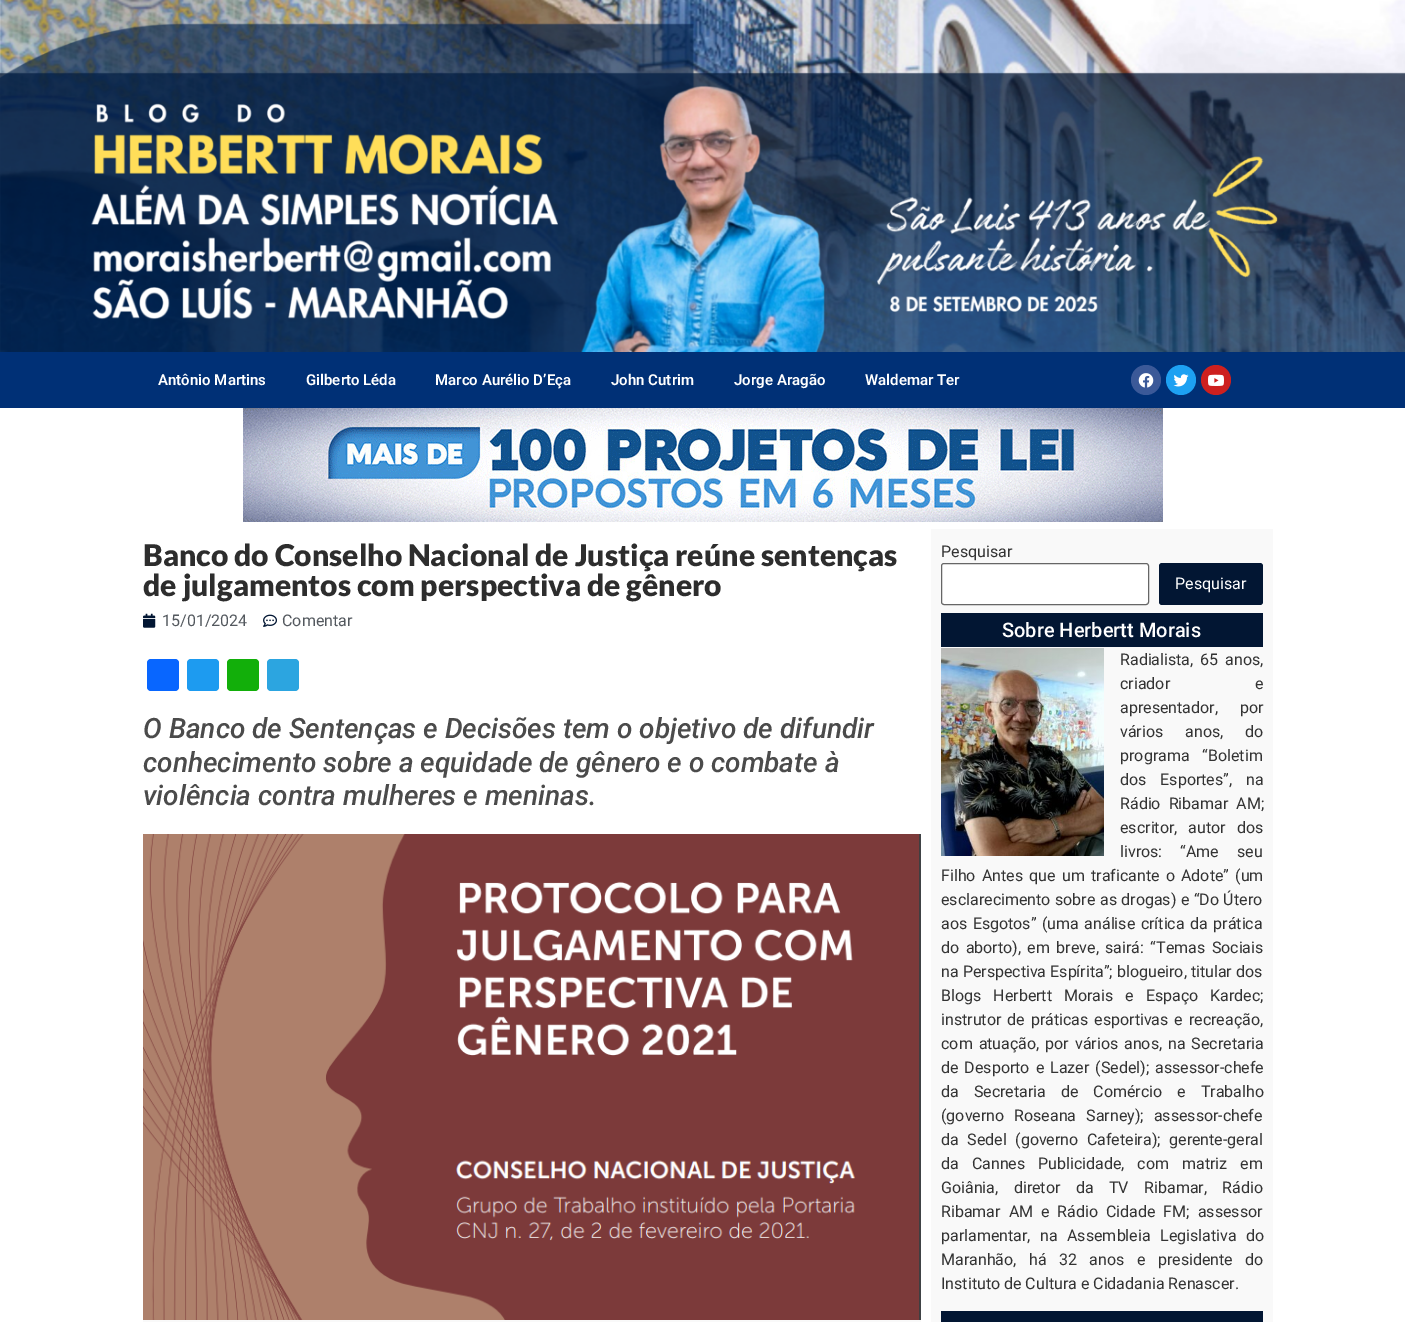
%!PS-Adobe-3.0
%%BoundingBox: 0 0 1405 1322
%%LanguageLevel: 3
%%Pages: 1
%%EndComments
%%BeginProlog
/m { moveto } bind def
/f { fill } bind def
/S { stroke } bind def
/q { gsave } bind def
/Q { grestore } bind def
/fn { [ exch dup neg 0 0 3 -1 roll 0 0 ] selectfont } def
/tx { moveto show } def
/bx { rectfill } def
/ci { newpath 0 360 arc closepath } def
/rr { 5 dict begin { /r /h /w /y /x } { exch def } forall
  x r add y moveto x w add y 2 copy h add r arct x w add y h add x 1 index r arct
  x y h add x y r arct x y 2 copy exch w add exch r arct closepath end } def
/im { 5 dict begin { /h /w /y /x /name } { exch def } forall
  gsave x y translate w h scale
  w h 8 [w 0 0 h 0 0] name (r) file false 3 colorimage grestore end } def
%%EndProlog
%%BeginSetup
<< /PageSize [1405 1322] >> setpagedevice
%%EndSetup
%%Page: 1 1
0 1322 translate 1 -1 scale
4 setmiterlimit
1 setgray
0 0 1405 1322 bx
(image0.raw) 0 0 1405 352 im
0 0.188 0.463 setrgbcolor
0 352 1405 56 bx
/Roboto-SemiBold 15 fn
1 setgray
(Antônio Martins) 158 385 tx
(Gilberto Léda) 306 385 tx
(Marco Aurélio D’Eça) 435 385 tx
(John Cutrim) 611 385 tx
(Jorge Aragão) 734 385 tx
(Waldemar Ter) 865 385 tx
0.231 0.349 0.596 setrgbcolor
1146 380 15 ci f
(image1.raw) 1138 373 16 15 im
0.114 0.631 0.949 setrgbcolor
1181 380 15 ci f
(image2.raw) 1173 374 16 13 im
0.804 0.125 0.122 setrgbcolor
1216 380 15 ci f
(image3.raw) 1208 374 16 12 im
(image4.raw) 243 408 920 114 im
/Lato-Black 30 fn
0.176 setgray
(Banco do Conselho Nacional de Justiça reúne sentenças) 143 566 tx
(de julgamentos com perspectiva de gênero) 143 596 tx
(image5.raw) 143 613 13 15 im
/Roboto-Regular 16 fn
0.329 0.349 0.373 setrgbcolor
(15/01/2024) 162 626 tx
(image6.raw) 263 614 14 13 im
(Comentar) 282 626 tx
0.031 0.4 1 setrgbcolor
147 659 32 32 4 rr f
0.114 0.608 0.941 setrgbcolor
187 659 32 32 4 rr f
0.071 0.686 0.039 setrgbcolor
227 659 32 32 4 rr f
0.173 0.647 0.878 setrgbcolor
267 659 32 32 4 rr f
/Roboto-MediumItalic 28 fn
0.294 setgray
(O Banco de Sentenças e Decisões tem o objetivo de difundir) 143 738 tx
(conhecimento sobre a equidade de gênero e o combate à) 143 772 tx
(violência contra mulheres e meninas.) 143 805 tx
(image7.raw) 143 834 778 486 im
0.976 setgray
143 1320 778 2 bx
931 529 342 793 bx
/Roboto-Regular 16 fn
0.2 setgray
(Pesquisar) 941 557 tx
1 setgray
941.5 563.5 207 41 2.5 rr q f Q
0.4 setgray
S
0.008 0.086 0.2 setrgbcolor
1159 563 104 42 3 rr f
1 setgray
(Pesquisar) 1175 589 tx
0.008 0.086 0.2 setrgbcolor
941 613 322 34 bx
/Roboto-Medium 20 fn
1 setgray
(Sobre Herbertt Morais) 1002 637 tx
(image8.raw) 941 648 163 208 im
/Roboto-Regular 16 fn
0.2 setgray
1120 665 m 3 0 32 (Radialista, 65 anos,) widthshow
1120 689 m 81 0 32 (criador e) widthshow
1120 713 m 18 0 32 (apresentador, por) widthshow
1120 737 m 18 0 32 (vários anos, do) widthshow
1120 761 m 9 0 32 (programa “Boletim) widthshow
1120 785 m 10 0 32 (dos Esportes”, na) widthshow
1120 809 m 4 0 32 (Rádio Ribamar AM;) widthshow
1120 833 m 7 0 32 (escritor, autor dos) widthshow
1120 857 m 14 0 32 (livros: “Ame seu) widthshow
941 881 m 2.25 0 32 (Filho Antes que um traficante o Adote” \(um) widthshow
941 905 m 0.5 0 32 (esclarecimento sobre as drogas\) e “Do Útero) widthshow
941 929 m 1.5 0 32 (aos Esgotos” \(uma análise crítica da prática) widthshow
941 953 m 2.5 0 32 (do aborto\), em breve, sairá: “Temas Sociais) widthshow
(na Perspectiva Espírita”; blogueiro, titular dos) 941 977 tx
941 1001 m 8 0 32 (Blogs Herbertt Morais e Espaço Kardec;) widthshow
941 1025 m 2 0 32 (instrutor de práticas esportivas e recreação,) widthshow
941 1049 m 2 0 32 (com atuação, por vários anos, na Secretaria) widthshow
941 1073 m 2 0 32 (de Desporto e Lazer \(Sedel\); assessor-chefe) widthshow
941 1097 m 11 0 32 (da Secretaria de Comércio e Trabalho) widthshow
941 1121 m 6 0 32 (\(governo Roseana Sarney\); assessor-chefe) widthshow
941 1145 m 4.5 0 32 (da Sedel \(governo Cafeteira\); gerente-geral) widthshow
941 1169 m 9 0 32 (da Cannes Publicidade, com matriz em) widthshow
941 1193 m 11.5 0 32 (Goiânia, diretor da TV Ribamar, Rádio) widthshow
941 1217 m 4 0 32 (Ribamar AM e Rádio Cidade FM; assessor) widthshow
941 1241 m 5.5 0 32 (parlamentar, na Assembleia Legislativa do) widthshow
941 1265 m 8.5 0 32 (Maranhão, há 32 anos e presidente do) widthshow
(Instituto de Cultura e Cidadania Renascer.) 941 1289 tx
0.008 0.086 0.2 setrgbcolor
941 1311 322 11 bx
showpage
%%EOF
